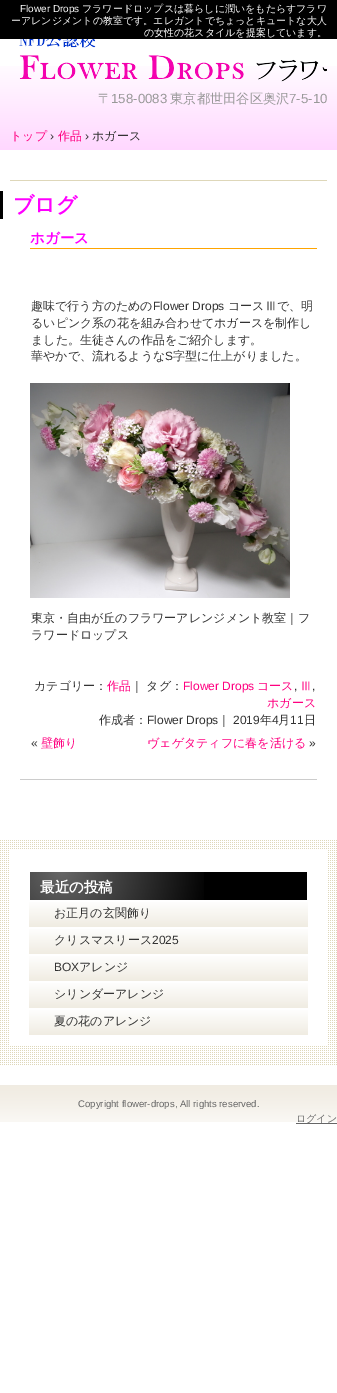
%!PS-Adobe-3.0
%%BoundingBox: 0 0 337 1393
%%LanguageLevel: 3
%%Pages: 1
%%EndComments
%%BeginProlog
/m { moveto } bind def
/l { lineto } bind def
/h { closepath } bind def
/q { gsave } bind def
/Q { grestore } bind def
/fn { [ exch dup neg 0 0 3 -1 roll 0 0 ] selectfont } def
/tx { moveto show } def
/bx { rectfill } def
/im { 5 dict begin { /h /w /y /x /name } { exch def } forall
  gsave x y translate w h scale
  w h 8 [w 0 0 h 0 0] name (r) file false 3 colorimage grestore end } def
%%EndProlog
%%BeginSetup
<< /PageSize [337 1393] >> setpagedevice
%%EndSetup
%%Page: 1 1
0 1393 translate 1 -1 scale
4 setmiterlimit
1 setgray
0 0 337 1393 bx
(image0.raw) 0 66 337 84 im
0 setgray
0 0 337 39 bx
/LiberationSans-Regular 10 fn
1 setgray
(Flower Drops) 20 12 tx
/WenQuanYiZenHei-Medium 10 fn
(フラワードロップスは暮らしに潤いをもたらすフラワ) 82 12 tx
(ーアレンジメントの教室です。エレガントでちょっとキュートな大人) 11 24 tx
(の女性の花スタイルを提案しています。) 144 36 tx
(image1.raw) 19 39 308 43 im
/WenQuanYiZenHei-Medium 13.25 fn
0.6 setgray
(〒) 98 103 tx
/LiberationSans-Regular 13.25 fn
(158-0083) 111 103 tx
/WenQuanYiZenHei-Medium 13.25 fn
(東京都世田谷区奥沢) 170 103 tx
/LiberationSans-Regular 13.25 fn
(7-5-10) 289 103 tx
/WenQuanYiZenHei-Medium 12 fn
1 0 0.502 setrgbcolor
(トップ) 10 140 tx
/LiberationSans-Regular 12 fn
0.2 setgray
(›) 50 140 tx
/WenQuanYiZenHei-Medium 12 fn
1 0 0.502 setrgbcolor
(作品) 58 140 tx
/LiberationSans-Regular 12 fn
0.2 setgray
(›) 85 140 tx
/WenQuanYiZenHei-Medium 12 fn
(ホガース) 92 140 tx
0.871 0.843 0.725 setrgbcolor
10 180 317 1 bx
0 setgray
0 191 3 28 bx
/WenQuanYiZenHei-Bold 21 fn
1 0 1 setrgbcolor
(ブログ) 13 212 tx
0.8 setgray
20 779 297 1 bx
1 0.647 0 setrgbcolor
30 248 287 1 bx
/WenQuanYiZenHei-Bold 14.5 fn
1 0 1 setrgbcolor
(ホガース) 30 243 tx
/WenQuanYiZenHei-Medium 12 fn
0.2 setgray
(趣味で行う方のための) 31 310 tx
/LiberationSans-Regular 12 fn
(Flower Drops) 153 310 tx
/WenQuanYiZenHei-Medium 12 fn
(コースⅢで、明) 228 310 tx
(るいピンク系の花を組み合わせてホガースを制作し) 31 327 tx
(ました。生徒さんの作品をご紹介します。) 31 344 tx
(華やかで、流れるような) 31 360 tx
/LiberationSans-Regular 12 fn
(S) 165 360 tx
/WenQuanYiZenHei-Medium 12 fn
(字型に仕上がりました。) 173 360 tx
(image2.raw) 30 383 260 215 im
(東京・自由が丘のフラワーアレンジメント教室｜フ) 31 622 tx
(ラワードロップス) 31 639 tx
(カテゴリー：) 34 690 tx
1 0 0.502 setrgbcolor
(作品) 107 690 tx
0.2 setgray
(｜ タグ：) 131 690 tx
/LiberationSans-Regular 12 fn
1 0 0.502 setrgbcolor
(Flower Drops) 183 690 tx
/WenQuanYiZenHei-Medium 12 fn
(コース) 257 690 tx
/LiberationSans-Regular 12 fn
0.2 setgray
(,) 294 690 tx
/WenQuanYiZenHei-Medium 12 fn
1 0 0.502 setrgbcolor
(Ⅲ) 300 690 tx
/LiberationSans-Regular 12 fn
0.2 setgray
(,) 312 690 tx
/WenQuanYiZenHei-Medium 12 fn
1 0 0.502 setrgbcolor
(ホガース) 267 707 tx
0.2 setgray
(作成者：) 99 724 tx
/LiberationSans-Regular 12 fn
(Flower Drops) 147 724 tx
/WenQuanYiZenHei-Medium 12 fn
(｜) 218 724 tx
/LiberationSans-Regular 12 fn
(2019) 233 724 tx
/WenQuanYiZenHei-Medium 12 fn
(年) 260 724 tx
/LiberationSans-Regular 12 fn
(4) 272 724 tx
/WenQuanYiZenHei-Medium 12 fn
(月) 278 724 tx
/LiberationSans-Regular 12 fn
(11) 290 724 tx
/WenQuanYiZenHei-Medium 12 fn
(日) 304 724 tx
/LiberationSans-Regular 12 fn
(«) 31 747 tx
/WenQuanYiZenHei-Medium 12 fn
1 0 0.502 setrgbcolor
(壁飾り) 41 747 tx
(ヴェゲタティフに春を活ける) 147 747 tx
/LiberationSans-Regular 12 fn
0.2 setgray
(») 309 747 tx
(image3.raw) 0 840 337 225 im
1 setgray
10 850 317 195 bx
0 setgray
204 872 103 28 bx
(image4.raw) 30 872 174 28 im
/WenQuanYiZenHei-Bold 14.5 fn
1 setgray
(最近の投稿) 40 892 tx
q 29 902 m 308 902 l 308 927 l 29 927 l h clip newpath
<< /ShadingType 2 /ColorSpace /DeviceRGB /Coords [29 900 29 927] /Extend [true true] /Function << /FunctionType 2 /Domain [0 1] /C0 [1 1 1] /C1 [0.941 0.925 0.886] /N 1 >> >> shfill Q
/WenQuanYiZenHei-Medium 12 fn
0.2 setgray
(お正月の玄関飾り) 54 917 tx
q 29 929 m 308 929 l 308 954 l 29 954 l h clip newpath
<< /ShadingType 2 /ColorSpace /DeviceRGB /Coords [29 927 29 954] /Extend [true true] /Function << /FunctionType 2 /Domain [0 1] /C0 [1 1 1] /C1 [0.941 0.925 0.886] /N 1 >> >> shfill Q
(クリスマスリース) 54 944 tx
/LiberationSans-Regular 12 fn
(2025) 152 944 tx
q 29 956 m 308 956 l 308 981 l 29 981 l h clip newpath
<< /ShadingType 2 /ColorSpace /DeviceRGB /Coords [29 954 29 981] /Extend [true true] /Function << /FunctionType 2 /Domain [0 1] /C0 [1 1 1] /C1 [0.941 0.925 0.886] /N 1 >> >> shfill Q
(BOX) 54 971 tx
/WenQuanYiZenHei-Medium 12 fn
(アレンジ) 79 971 tx
q 29 983 m 308 983 l 308 1008 l 29 1008 l h clip newpath
<< /ShadingType 2 /ColorSpace /DeviceRGB /Coords [29 981 29 1008] /Extend [true true] /Function << /FunctionType 2 /Domain [0 1] /C0 [1 1 1] /C1 [0.941 0.925 0.886] /N 1 >> >> shfill Q
(シリンダーアレンジ) 54 998 tx
q 29 1010 m 308 1010 l 308 1035 l 29 1035 l h clip newpath
<< /ShadingType 2 /ColorSpace /DeviceRGB /Coords [29 1008 29 1035] /Extend [true true] /Function << /FunctionType 2 /Domain [0 1] /C0 [1 1 1] /C1 [0.941 0.925 0.886] /N 1 >> >> shfill Q
(夏の花のアレンジ) 54 1025 tx
(image5.raw) 0 1085 337 37 im
/LiberationSans-Regular 9.6 fn
0.4 setgray
(Copyright flower-drops, All rights reserved.) 78 1107 tx
296 1123 41 1 bx
/WenQuanYiZenHei-Medium 10 fn
(ログイン) 296 1122 tx
showpage
%%EOF
